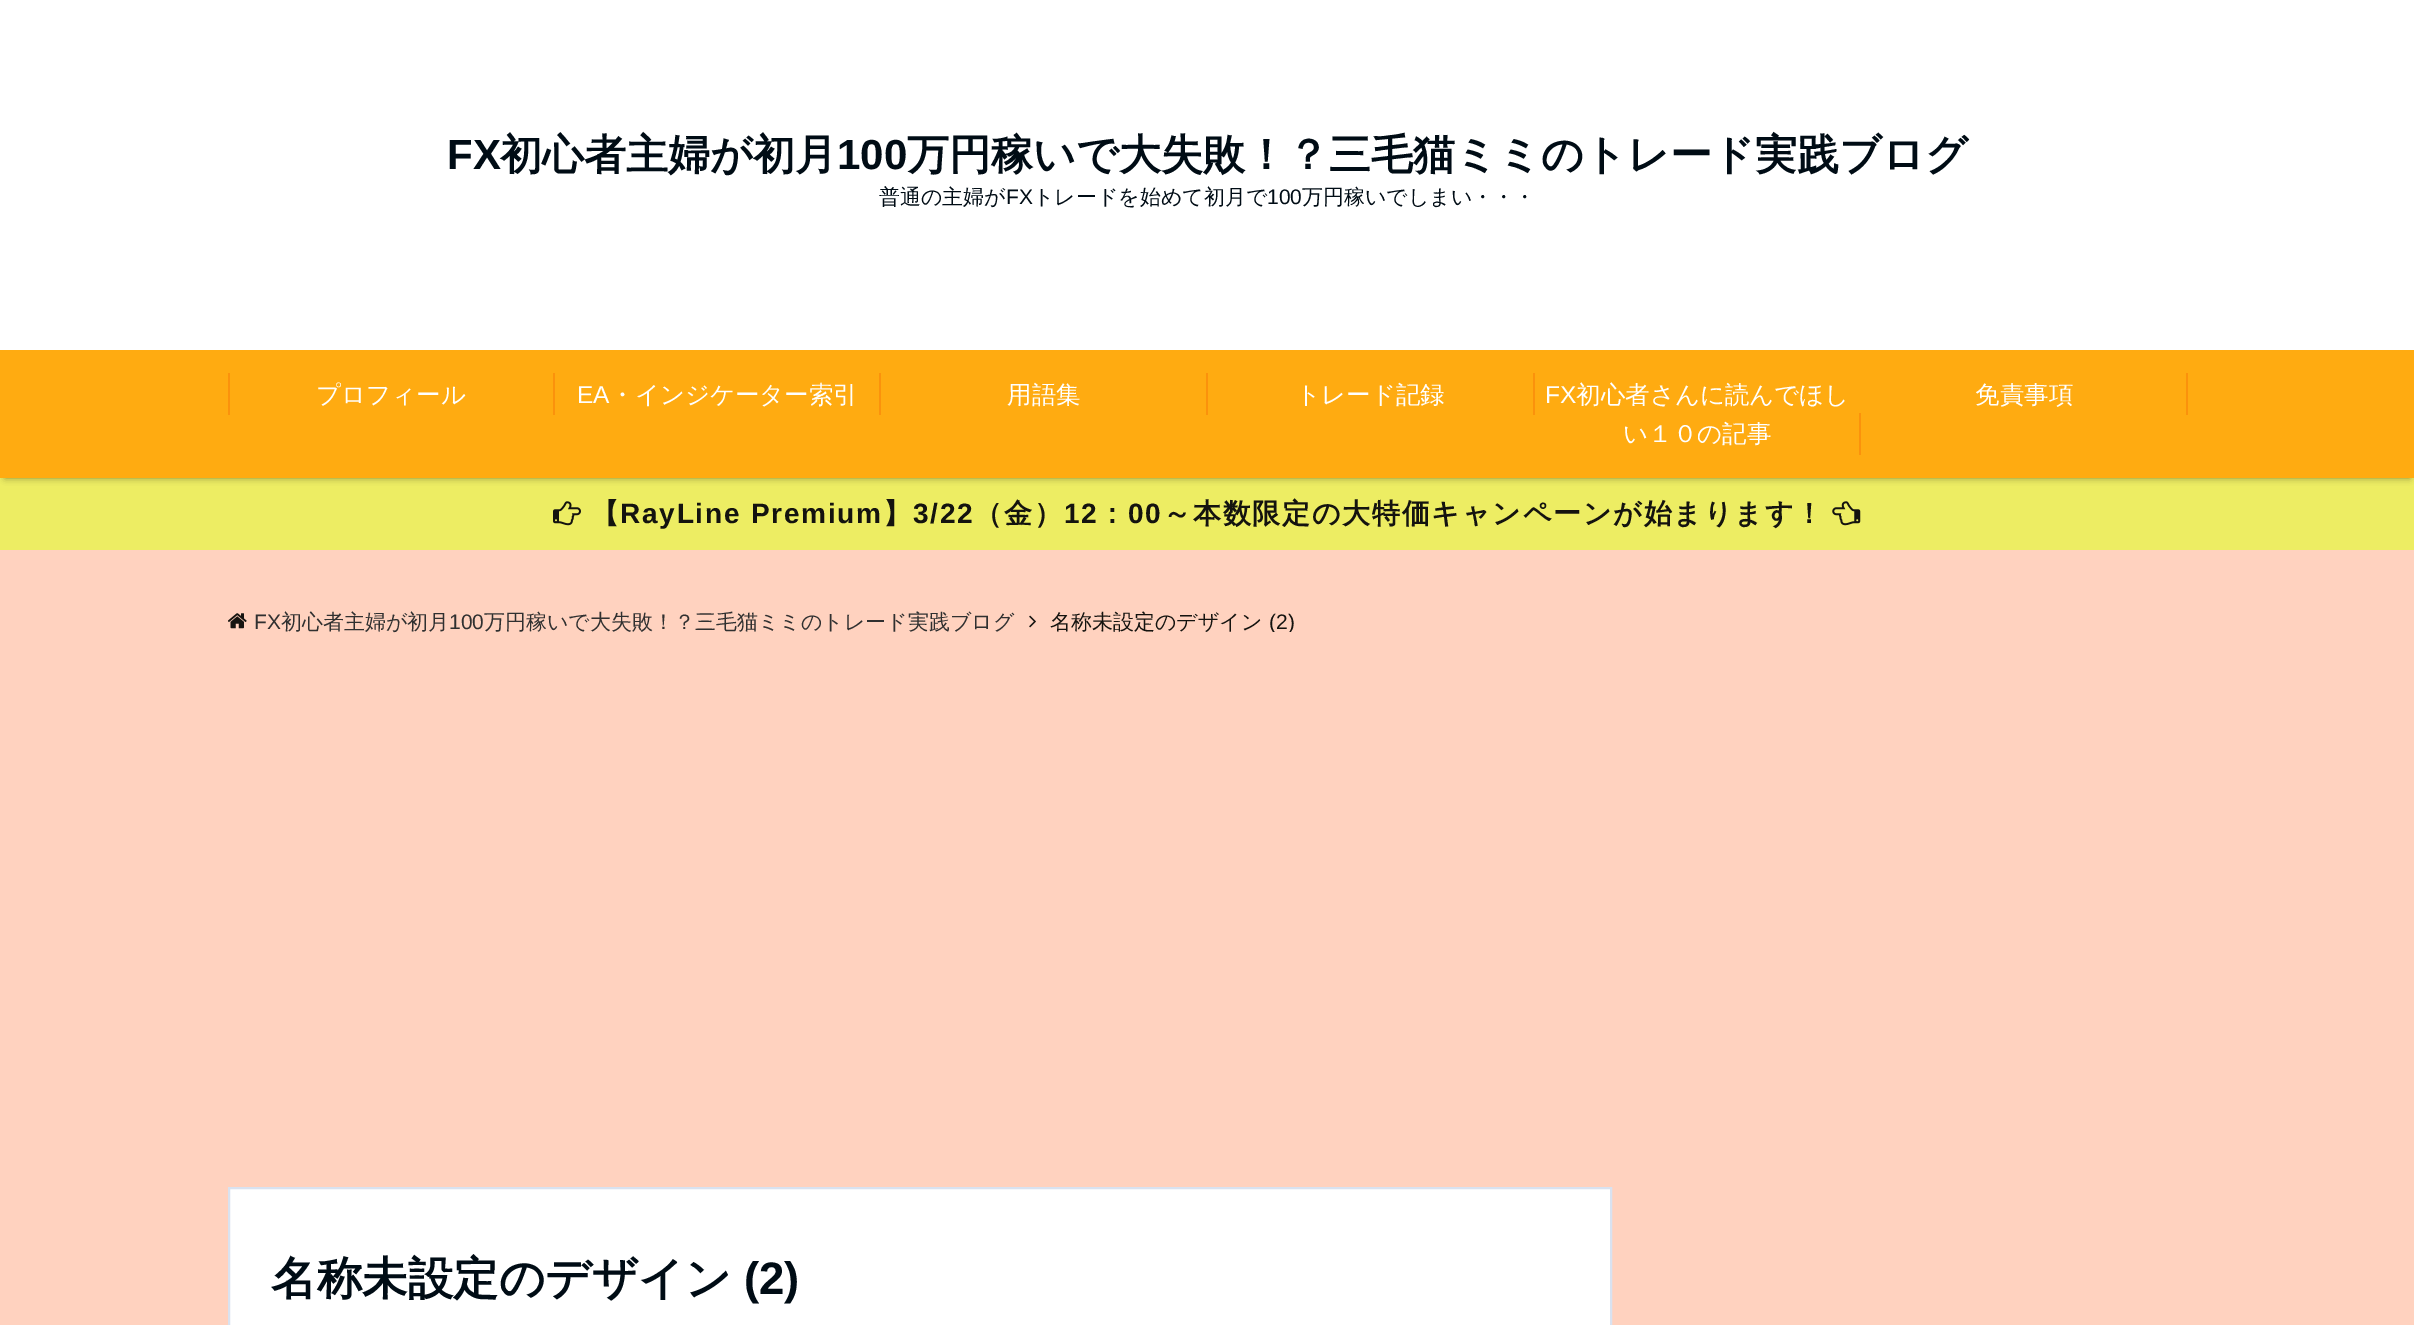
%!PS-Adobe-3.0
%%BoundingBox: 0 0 2414 1325
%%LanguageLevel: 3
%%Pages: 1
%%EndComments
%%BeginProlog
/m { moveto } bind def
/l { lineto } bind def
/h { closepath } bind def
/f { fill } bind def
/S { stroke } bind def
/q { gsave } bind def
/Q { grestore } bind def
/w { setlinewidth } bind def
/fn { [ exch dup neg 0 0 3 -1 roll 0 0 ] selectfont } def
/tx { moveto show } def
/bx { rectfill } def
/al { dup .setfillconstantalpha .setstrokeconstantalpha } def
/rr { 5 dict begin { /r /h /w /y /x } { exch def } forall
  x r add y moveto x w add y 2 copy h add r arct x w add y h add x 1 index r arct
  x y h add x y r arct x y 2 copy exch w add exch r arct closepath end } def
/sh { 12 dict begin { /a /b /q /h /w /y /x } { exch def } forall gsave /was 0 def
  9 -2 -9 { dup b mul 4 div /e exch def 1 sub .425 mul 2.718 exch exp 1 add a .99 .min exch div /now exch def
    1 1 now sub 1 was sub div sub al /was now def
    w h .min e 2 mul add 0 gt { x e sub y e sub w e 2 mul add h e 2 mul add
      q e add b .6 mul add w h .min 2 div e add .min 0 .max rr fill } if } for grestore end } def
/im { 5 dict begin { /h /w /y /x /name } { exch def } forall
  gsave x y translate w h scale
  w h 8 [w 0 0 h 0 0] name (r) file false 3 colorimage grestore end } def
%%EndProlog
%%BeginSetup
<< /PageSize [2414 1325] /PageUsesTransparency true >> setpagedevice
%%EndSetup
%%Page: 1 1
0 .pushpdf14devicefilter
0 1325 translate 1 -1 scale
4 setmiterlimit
1 0.824 0.749 setrgbcolor
0 0 2414 1325 bx
1 setgray
0 0 2414 350 bx
/LiberationSans-Bold 42 fn
0 0.047 0.082 setrgbcolor
(FX) 447 169 tx
/WenQuanYiZenHei-Bold 42 fn
(初心者主婦が初月) 500 169 tx
/LiberationSans-Bold 42 fn
(100) 837 169 tx
/WenQuanYiZenHei-Bold 42 fn
(万円稼いで大失敗！？三毛猫ミミのトレード実践ブログ) 907 169 tx
/WenQuanYiZenHei-Medium 21 fn
(普通の主婦が) 879 204 tx
/LiberationSans-Regular 21 fn
(FX) 1006 204 tx
/WenQuanYiZenHei-Medium 21 fn
(トレードを始めて初月で) 1033 204 tx
/LiberationSans-Regular 21 fn
(100) 1267 204 tx
/WenQuanYiZenHei-Medium 21 fn
(万円稼いでしまい・・・) 1302 204 tx
0.929 0.929 0.388 setrgbcolor
0 478 2414 72 bx
0 setgray
5 361 2405 117 0 3.5 0.4 sh
1 0.671 0.067 setrgbcolor
0 350 2414 128 bx
0.984 0.573 0.047 setrgbcolor
228 373 2 42 bx
/WenQuanYiZenHei-Medium 24.5 fn
1 setgray
(プロフィール) 316 403 tx
0.984 0.573 0.047 setrgbcolor
553 373 2 42 bx
/LiberationSans-Regular 24.5 fn
1 setgray
(EA) 577 403 tx
/WenQuanYiZenHei-Medium 24.5 fn
(・インジケーター索引) 610 403 tx
0.984 0.573 0.047 setrgbcolor
879 373 2 42 bx
1 setgray
(用語集) 1007 403 tx
0.984 0.573 0.047 setrgbcolor
1206 373 2 42 bx
1 setgray
(トレード記録) 1296 403 tx
0.984 0.573 0.047 setrgbcolor
1533 373 2 42 bx
/LiberationSans-Regular 24.5 fn
1 setgray
(FX) 1545 403 tx
/WenQuanYiZenHei-Medium 24.5 fn
(初心者さんに読んでほし) 1576 403 tx
(い１０の記事) 1623 442 tx
0.984 0.573 0.047 setrgbcolor
1859 413 2 42 bx
1 setgray
(免責事項) 1975 403 tx
0.984 0.573 0.047 setrgbcolor
2186 373 2 42 bx
(image0.raw) 553 501 28 25 im
/WenQuanYiZenHei-Bold 28 fn
0.078 0.075 0.059 setrgbcolor
591 523 m 1.75 0 (【) ashow
/LiberationSans-Bold 28 fn
620 523 m 1.75 0 (RayLine Premium) ashow
/WenQuanYiZenHei-Bold 28 fn
883 523 m 1.75 0 (】) ashow
/LiberationSans-Bold 28 fn
913 523 m 1.75 0 (3/22) ashow
/WenQuanYiZenHei-Bold 28 fn
974 523 m 1.75 0 (（金）) ashow
/LiberationSans-Bold 28 fn
1064 523 m 1.75 0 (12) ashow
/WenQuanYiZenHei-Bold 28 fn
1098 523 m 1.75 0 (：) ashow
/LiberationSans-Bold 28 fn
1128 523 m 1.75 0 (00) ashow
/WenQuanYiZenHei-Bold 28 fn
1163 523 m 1.75 0 (～本数限定の大特価キャンペーンが始まります！) ashow
(image1.raw) 1832 501 29 25 im
(image2.raw) 228 613 19 16 im
/LiberationSans-Regular 21 fn
0.188 setgray
(FX) 254 629 tx
/WenQuanYiZenHei-Medium 21 fn
(初心者主婦が初月) 281 629 tx
/LiberationSans-Regular 21 fn
(100) 449 629 tx
/WenQuanYiZenHei-Medium 21 fn
(万円稼いで大失敗！？三毛猫ミミのトレード実践ブログ) 484 629 tx
(image3.raw) 1029 615 7 13 im
0.078 0.075 0.059 setrgbcolor
(名称未設定のデザイン) 1050 629 tx
q
1050 611 245 21 rectclip
/LiberationSans-Regular 21 fn
(\(2\)) 1269 629 tx
Q
1 setgray
229 1188 m 1611 1188 l 1611 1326 l 229 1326 l h q f Q
0.851 0.886 0.941 setrgbcolor
2 w
S
/WenQuanYiZenHei-Bold 45.5 fn
0 0.047 0.082 setrgbcolor
(名称未設定のデザイン) 271 1294 tx
/LiberationSans-Bold 45.5 fn
(\(2\)) 744 1294 tx
.poppdf14devicefilter showpage
%%EOF
